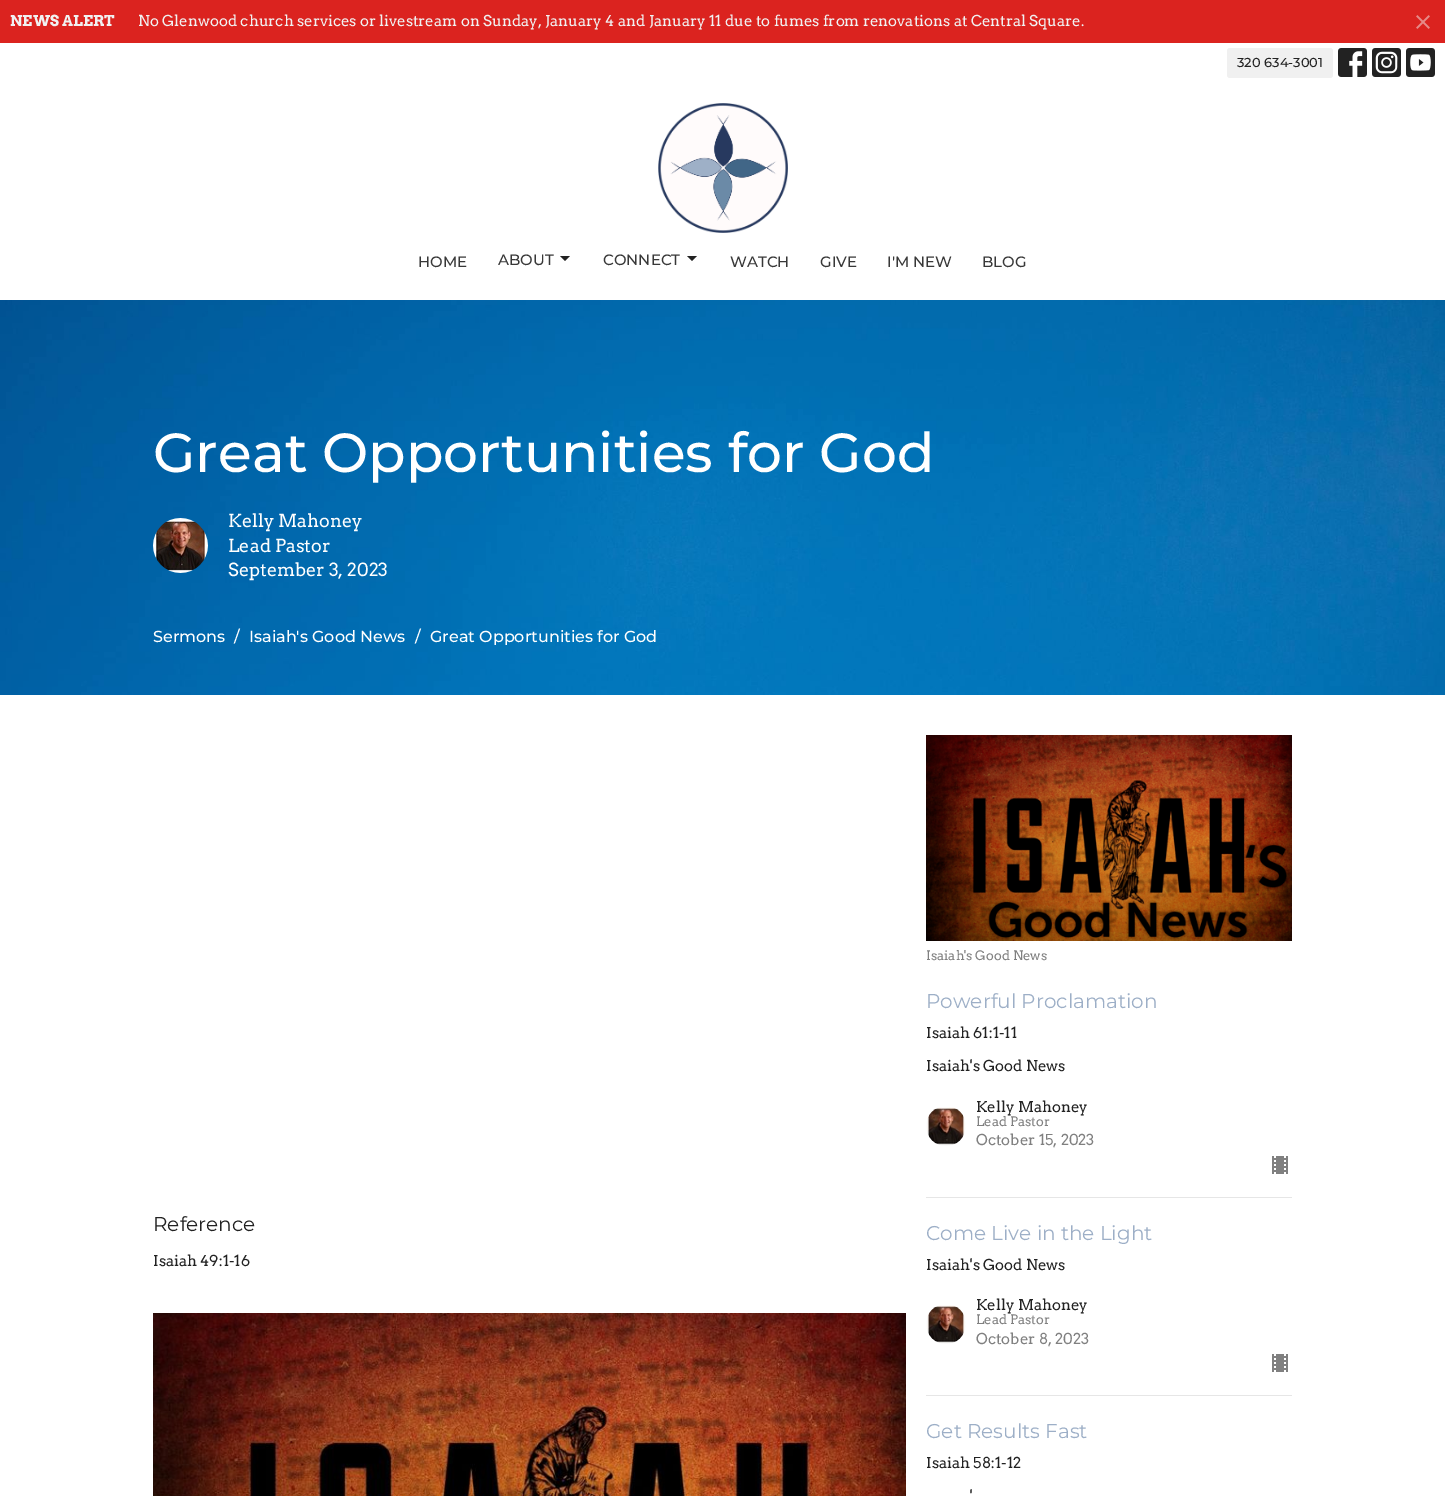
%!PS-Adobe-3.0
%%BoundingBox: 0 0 1445 1496
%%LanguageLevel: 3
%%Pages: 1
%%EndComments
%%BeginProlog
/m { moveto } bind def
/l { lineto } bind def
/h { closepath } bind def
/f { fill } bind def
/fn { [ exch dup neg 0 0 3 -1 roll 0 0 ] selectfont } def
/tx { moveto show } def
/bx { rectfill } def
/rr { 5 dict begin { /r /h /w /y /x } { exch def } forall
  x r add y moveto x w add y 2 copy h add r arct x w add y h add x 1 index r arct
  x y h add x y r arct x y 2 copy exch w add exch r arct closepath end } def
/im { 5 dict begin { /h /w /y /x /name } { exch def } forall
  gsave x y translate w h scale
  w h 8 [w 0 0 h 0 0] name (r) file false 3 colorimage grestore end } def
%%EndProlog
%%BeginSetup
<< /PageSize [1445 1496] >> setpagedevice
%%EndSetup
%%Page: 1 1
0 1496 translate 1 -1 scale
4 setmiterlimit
1 setgray
0 0 1445 1496 bx
0.859 0.137 0.122 setrgbcolor
0 0 1445 43 bx
/Arvo-Bold 15 fn
0.945 setgray
(NEWS ALERT) 10 26 tx
/Arvo-Regular 15 fn
(No Glenwood church services or livestream on Sunday, January 4 and January 11 due to fumes from renovations at Central Square.) 138 26 tx
(image0.raw) 1416 15 14 14 im
0.941 setgray
1227 48 106 30 3 rr f
/Montserrat-Medium 13 fn
0.133 setgray
(320 634-3001) 1237 67 tx
(image1.raw) 1338 48 29 29 im
(image2.raw) 1372 48 29 29 im
(image3.raw) 1406 48 29 29 im
(image4.raw) 658 103 130 130 im
/Montserrat-Medium 15 fn
0.22 setgray
(HOME) 418 267 tx
(ABOUT) 498 265 tx
0.133 setgray
560 256 m 565 261 l 570 256 l h f
0.22 setgray
(CONNECT) 603 265 tx
0.133 setgray
687 256 m 692 261 l 697 256 l h f
0.22 setgray
(WATCH) 730 267 tx
(GIVE) 820 267 tx
(I'M NEW) 887 267 tx
(BLOG) 982 267 tx
(image5.raw) 0 300 1445 395 im
/Montserrat-Medium 55 fn
1 setgray
(Great Opportunities for God) 153 472 tx
(image6.raw) 153 518 55 55 im
/Arvo-Regular 18 fn
(Kelly Mahoney) 228 527 tx
(Lead Pastor) 228 552 tx
(September 3, 2023) 228 576 tx
/Montserrat-Medium 16 fn
(Sermons) 153 642 tx
(/) 234 642 tx
(Isaiah's Good News) 249 642 tx
(/) 415 642 tx
(Great Opportunities for God) 430 642 tx
/Montserrat-Regular 20 fn
0.133 setgray
(Reference) 153 1231 tx
/Arvo-Regular 15 fn
(Isaiah 49:1-16) 153 1266 tx
(image7.raw) 153 1313 753 183 im
(image8.raw) 926 735 366 206 im
/Arvo-Regular 13 fn
0.502 setgray
(Isaiah's Good News) 926 960 tx
0.902 setgray
926 1197 366 1 bx
/Montserrat-Regular 20 fn
0.616 0.686 0.78 setrgbcolor
(Powerful Proclamation) 926 1008 tx
/Arvo-Regular 15 fn
0.133 setgray
(Isaiah 61:1-11) 926 1038 tx
(Isaiah's Good News) 926 1071 tx
(image9.raw) 926 1107 40 39 im
(Kelly Mahoney) 976 1112 tx
/Arvo-Regular 13 fn
0.502 setgray
(Lead Pastor) 976 1126 tx
/Arvo-Regular 15 fn
(October 15, 2023) 976 1145 tx
(image10.raw) 1272 1156 16 18 im
0.902 setgray
926 1395 366 1 bx
/Montserrat-Regular 20 fn
0.616 0.686 0.78 setrgbcolor
(Come Live in the Light) 926 1240 tx
/Arvo-Regular 15 fn
0.133 setgray
(Isaiah's Good News) 926 1270 tx
(image9.raw) 926 1305 40 39 im
(Kelly Mahoney) 976 1310 tx
/Arvo-Regular 13 fn
0.502 setgray
(Lead Pastor) 976 1324 tx
/Arvo-Regular 15 fn
(October 8, 2023) 976 1344 tx
(image10.raw) 1272 1354 16 18 im
/Montserrat-Regular 20 fn
0.616 0.686 0.78 setrgbcolor
(Get Results Fast) 926 1438 tx
/Arvo-Regular 15 fn
0.133 setgray
(Isaiah 58:1-12) 926 1468 tx
(') 970 1501 tx
showpage
%%EOF
